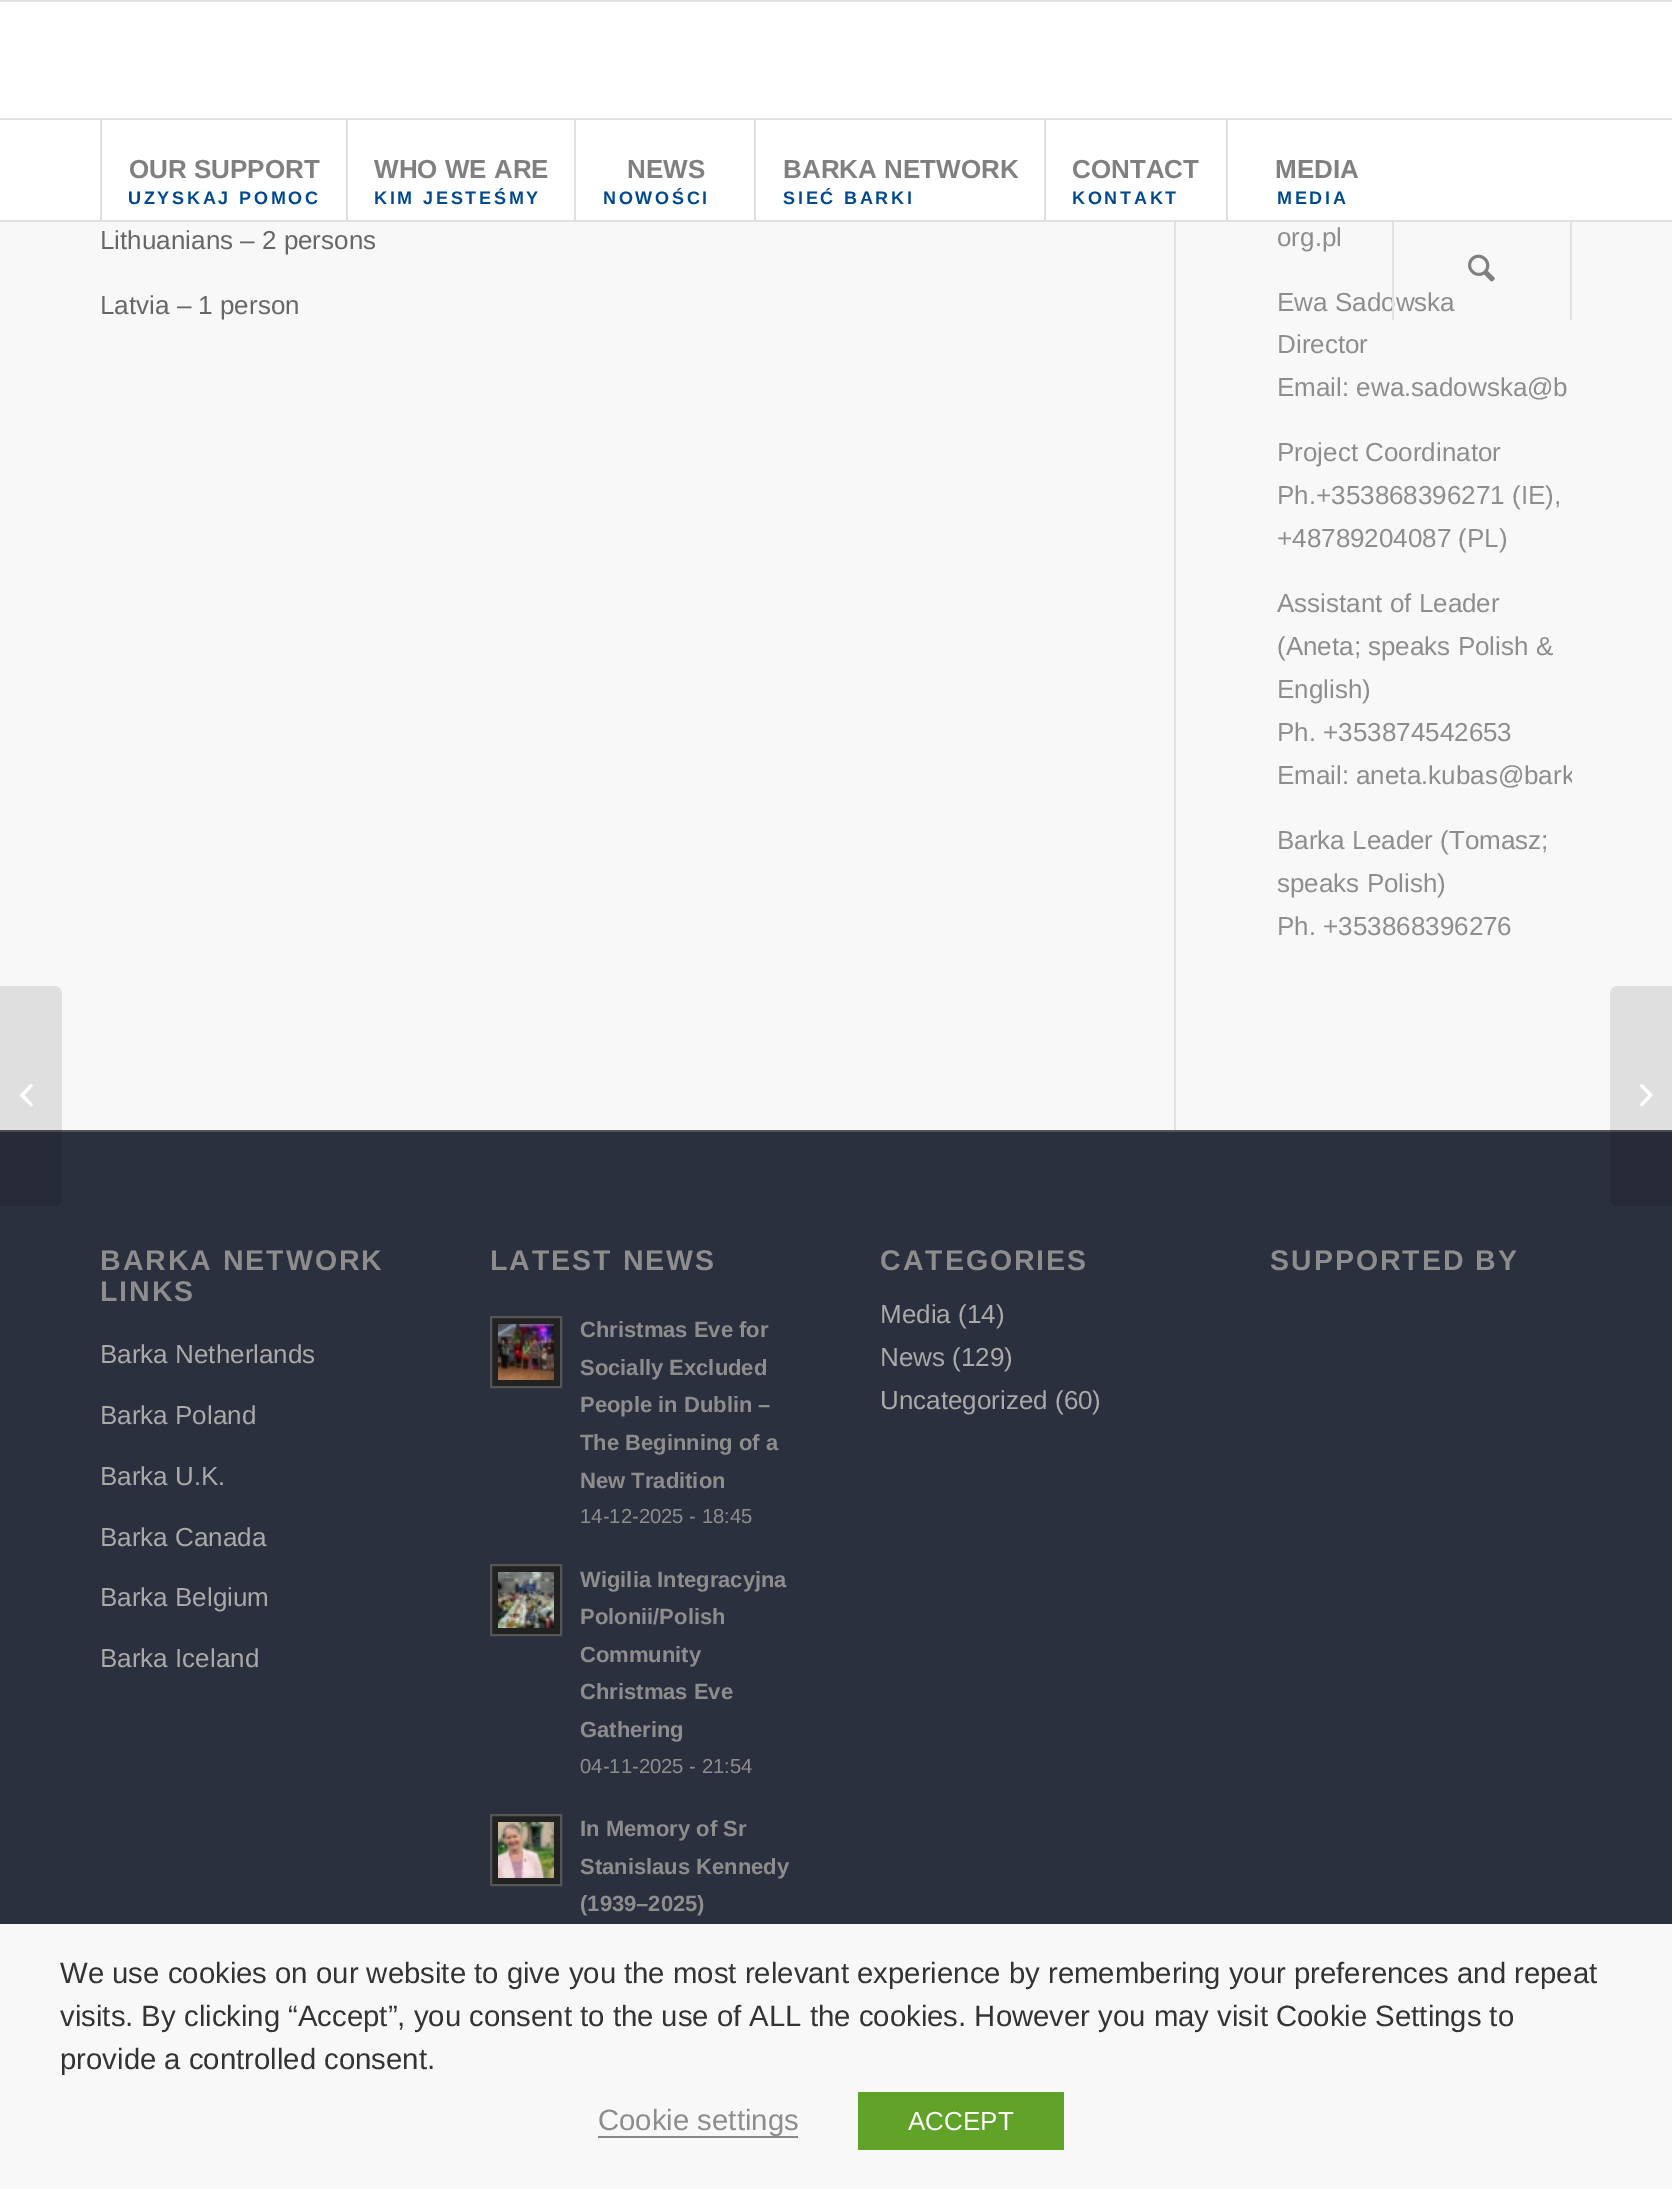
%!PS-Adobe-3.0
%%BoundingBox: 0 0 1672 2189
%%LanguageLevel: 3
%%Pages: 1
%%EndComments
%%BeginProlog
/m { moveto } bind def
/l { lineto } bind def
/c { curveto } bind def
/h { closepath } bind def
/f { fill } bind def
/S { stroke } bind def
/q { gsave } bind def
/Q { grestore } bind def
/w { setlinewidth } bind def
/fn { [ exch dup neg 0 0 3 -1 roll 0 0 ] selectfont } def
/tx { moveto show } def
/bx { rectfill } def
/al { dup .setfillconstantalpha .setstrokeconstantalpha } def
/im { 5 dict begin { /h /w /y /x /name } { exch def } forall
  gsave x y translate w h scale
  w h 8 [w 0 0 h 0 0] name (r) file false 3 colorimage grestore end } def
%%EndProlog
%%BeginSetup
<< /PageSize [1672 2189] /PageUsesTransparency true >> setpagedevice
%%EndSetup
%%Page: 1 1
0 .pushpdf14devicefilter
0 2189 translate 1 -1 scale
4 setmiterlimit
0.973 setgray
0 0 1672 2189 bx
1 setgray
0 2 1672 218 bx
0.882 setgray
0 0 1672 2 bx
0 220 1672 2 bx
0 118 1672 2 bx
100 120 2 100 bx
/LiberationSans-Bold 26 fn
0.502 setgray
(OUR SUPPORT) 129 178 tx
/LiberationSans-Bold 18 fn
0 0.286 0.557 setrgbcolor
128 204 m 2.75 0 (UZYSKAJ POMOC) ashow
0.882 setgray
346 120 2 100 bx
/LiberationSans-Bold 26 fn
0.502 setgray
(WHO WE ARE) 374 178 tx
/LiberationSans-Bold 18 fn
0 0.286 0.557 setrgbcolor
374 204 m 2.75 0 (KIM JESTEŚMY) ashow
0.882 setgray
574 120 2 100 bx
/LiberationSans-Bold 26 fn
0.502 setgray
(NEWS) 627 178 tx
/LiberationSans-Bold 18 fn
0 0.286 0.557 setrgbcolor
603 204 m 2.75 0 (NOWOŚCI) ashow
0.882 setgray
754 120 2 100 bx
/LiberationSans-Bold 26 fn
0.502 setgray
(BARKA NETWORK) 783 178 tx
/LiberationSans-Bold 18 fn
0 0.286 0.557 setrgbcolor
783 204 m 2.75 0 (SIEĆ BARKI) ashow
0.882 setgray
1044 120 2 100 bx
/LiberationSans-Bold 26 fn
0.502 setgray
(CONTACT) 1072 178 tx
/LiberationSans-Bold 18 fn
0 0.286 0.557 setrgbcolor
1072 204 m 2.75 0 (KONTAKT) ashow
0.882 setgray
1226 120 2 100 bx
/LiberationSans-Bold 26 fn
0.502 setgray
(MEDIA) 1275 178 tx
/LiberationSans-Bold 18 fn
0 0.286 0.557 setrgbcolor
1277 204 m 2.75 0 (MEDIA) ashow
0.882 setgray
1570 220 2 100 bx
/LiberationSans-Regular 26 fn
0.553 setgray
(Ewa Sadowska) 1277 311 tx
0.882 setgray
1392 220 2 100 bx
(image0.raw) 1468 254 27 28 im
0.165 0.188 0.239 setrgbcolor
0 1132 1672 792 bx
0.333 setgray
0 1130 1672 2 bx
0.1 al
0 setgray
0 986 m 54 986 l 58.5 986 62 989.5 62 994 c 62 1198 l 62 1202.5 58.5 1206 54 1206 c 0 1206 l h f
1 al
(image1.raw) 20 1084 13 23 im
0.4 setgray
(Lithuanians – 2 persons) 100 249 tx
(Latvia – 1 person) 100 314 tx
0.882 setgray
1174 222 2 908 bx
0.553 setgray
(org.pl) 1277 246 tx
(Director) 1277 353 tx
(Email: ewa.sadowska@b) 1277 396 tx
(Project Coordinator) 1277 461 tx
(Ph.+353868396271 \(IE\),) 1277 504 tx
(+48789204087 \(PL\)) 1277 547 tx
(Assistant of Leader) 1277 612 tx
(\(Aneta; speaks Polish &) 1277 655 tx
(English\)) 1277 698 tx
(Ph. +353874542653) 1277 741 tx
(Email:) 1277 784 tx
q
1176 0 396 1130 rectclip
(aneta.kubas@bark) 1356 784 tx
Q
(Barka Leader \(Tomasz;) 1277 849 tx
(speaks Polish\)) 1277 892 tx
(Ph. +353868396276) 1277 935 tx
/LiberationSans-Bold 28.5 fn
100 1270 m 2 0 (BARKA NETWORK) ashow
100 1301 m 2 0 (LINKS) ashow
/LiberationSans-Regular 26 fn
0.667 setgray
(Barka Netherlands) 100 1363 tx
(Barka Poland) 100 1424 tx
(Barka U.K.) 100 1485 tx
(Barka Canada) 100 1546 tx
(Barka Belgium) 100 1606 tx
(Barka Iceland) 100 1667 tx
/LiberationSans-Bold 28.5 fn
0.553 setgray
490 1270 m 2 0 (LATEST NEWS) ashow
0.133 setgray
491 1317 m 561 1317 l 561 1387 l 491 1387 l h q f Q
0.333 setgray
2 w
S
(image2.raw) 498 1324 56 56 im
/LiberationSans-Bold 22 fn
0.553 setgray
(Christmas Eve for) 580 1337 tx
(Socially Excluded) 580 1375 tx
(People in Dublin –) 580 1412 tx
(The Beginning of a) 580 1450 tx
(New Tradition) 580 1488 tx
/LiberationSans-Regular 20.25 fn
(14-12-2025 - 18:45) 580 1523 tx
0.133 setgray
491 1565 m 561 1565 l 561 1635 l 491 1635 l h q f Q
0.333 setgray
S
(image3.raw) 498 1572 56 56 im
/LiberationSans-Bold 22 fn
0.553 setgray
(Wigilia Integracyjna) 580 1587 tx
(Polonii/Polish) 580 1624 tx
(Community) 580 1662 tx
(Christmas Eve) 580 1699 tx
(Gathering) 580 1737 tx
/LiberationSans-Regular 20.25 fn
(04-11-2025 - 21:54) 580 1773 tx
0.133 setgray
491 1815 m 561 1815 l 561 1885 l 491 1885 l h q f Q
0.333 setgray
S
(image4.raw) 498 1822 56 56 im
/LiberationSans-Bold 22 fn
0.553 setgray
(In Memory of Sr) 580 1836 tx
(Stanislaus Kennedy) 580 1874 tx
(\(1939–2025\)) 580 1911 tx
/LiberationSans-Bold 28.5 fn
880 1270 m 2 0 (CATEGORIES) ashow
/LiberationSans-Regular 26 fn
0.667 setgray
(Media \(14\)) 880 1323 tx
(News \(129\)) 880 1366 tx
(Uncategorized \(60\)) 880 1409 tx
/LiberationSans-Bold 28.5 fn
0.553 setgray
1270 1270 m 2 0 (SUPPORTED BY) ashow
0.1 al
0 setgray
1618 986 m 1672 986 l 1672 1206 l 1618 1206 l 1613.5 1206 1610 1202.5 1610 1198 c 1610 994 l 1610 989.5 1613.5 986 1618 986 c h f
1 al
(image5.raw) 1640 1084 13 23 im
/LiberationSans-Regular 29.33 fn
0.2 setgray
(We use cookies on our website to give you the most relevant experience by remembering your preferences and repeat) 60 1983 tx
(visits. By clicking “Accept”, you consent to the use of ALL the cookies. However you may visit Cookie Settings to) 60 2026 tx
(provide a controlled consent.) 60 2069 tx
0.537 0.533 0.533 setrgbcolor
598 2136 200 2 bx
0.553 setgray
(Cookie settings) 598 2130 tx
0.38 0.635 0.161 setrgbcolor
858 2092 206 58 bx
/LiberationSans-Regular 26 fn
1 setgray
(ACCEPT) 908 2130 tx
.poppdf14devicefilter showpage
%%EOF
